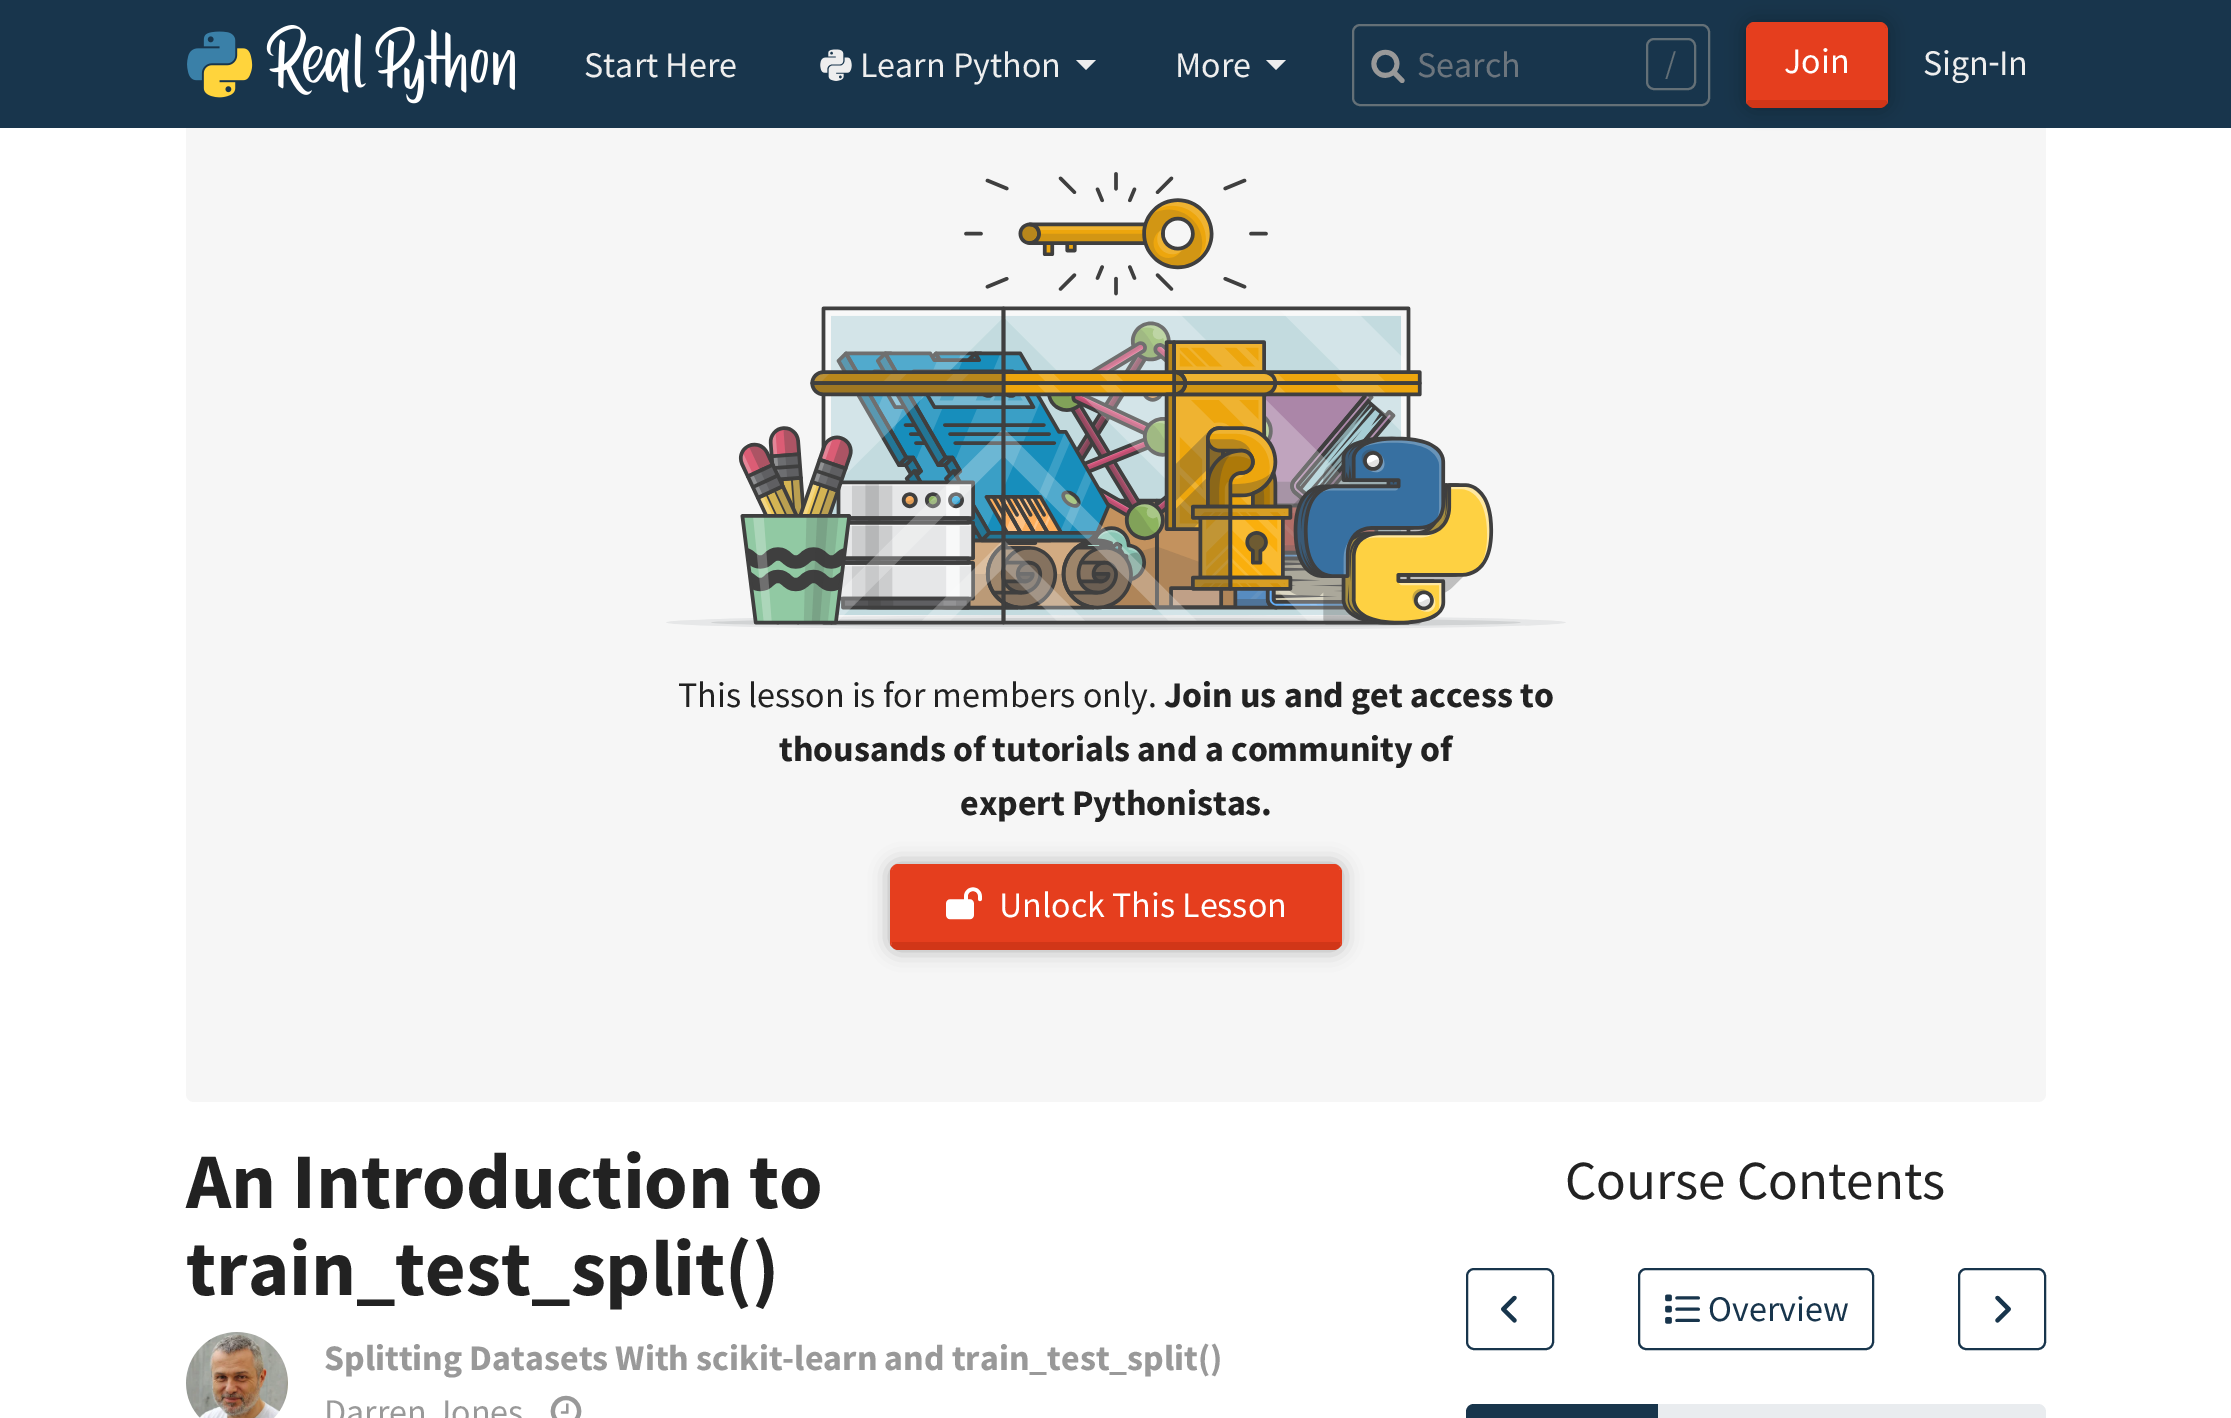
%!PS-Adobe-3.0
%%BoundingBox: 0 0 2231 1418
%%LanguageLevel: 3
%%Pages: 1
%%EndComments
%%BeginProlog
/m { moveto } bind def
/l { lineto } bind def
/c { curveto } bind def
/h { closepath } bind def
/f { fill } bind def
/S { stroke } bind def
/w { setlinewidth } bind def
/fn { [ exch dup neg 0 0 3 -1 roll 0 0 ] selectfont } def
/tx { moveto show } def
/bx { rectfill } def
/al { dup .setfillconstantalpha .setstrokeconstantalpha } def
/rr { 5 dict begin { /r /h /w /y /x } { exch def } forall
  x r add y moveto x w add y 2 copy h add r arct x w add y h add x 1 index r arct
  x y h add x y r arct x y 2 copy exch w add exch r arct closepath end } def
/sh { 12 dict begin { /a /b /q /h /w /y /x } { exch def } forall gsave /was 0 def
  9 -2 -9 { dup b mul 4 div /e exch def 1 sub .425 mul 2.718 exch exp 1 add a .99 .min exch div /now exch def
    1 1 now sub 1 was sub div sub al /was now def
    w h .min e 2 mul add 0 gt { x e sub y e sub w e 2 mul add h e 2 mul add
      q e add b .6 mul add w h .min 2 div e add .min 0 .max rr fill } if } for grestore end } def
/im { 5 dict begin { /h /w /y /x /name } { exch def } forall
  gsave x y translate w h scale
  w h 8 [w 0 0 h 0 0] name (r) file false 3 colorimage grestore end } def
%%EndProlog
%%BeginSetup
<< /PageSize [2231 1418] /PageUsesTransparency true >> setpagedevice
%%EndSetup
%%Page: 1 1
0 .pushpdf14devicefilter
0 1418 translate 1 -1 scale
4 setmiterlimit
1 setgray
0 0 2231 1418 bx
0.965 setgray
186 56 1860 1046 8 rr f
0.094 0.208 0.298 setrgbcolor
0 0 2231 128 bx
(image0.raw) 187 25 328 79 im
/SourceSansPro-Regular 36 fn
0.933 setgray
(Start Here) 584 77 tx
(image1.raw) 820 49 32 32 im
(Learn Python) 860 77 tx
1076 60 m 1096 60 l 1086 70 l h f
(More) 1175 77 tx
1266 60 m 1286 60 l 1276 70 l h f
0.392 0.439 0.467 setrgbcolor
2 w
1353 25 356 80 7 rr S
(image2.raw) 1371 49 34 34 im
0.424 0.459 0.49 setrgbcolor
(Search) 1417 77 tx
0.392 0.439 0.467 setrgbcolor
1647 39 48 50 7 rr S
/SourceSansPro-Regular 32 fn
(/) 1665 74 tx
0 setgray
1746 22 142 86 8 10 0.3 sh
0.898 0.243 0.118 setrgbcolor
1754 22 m 1880 22 l 1883 22 1886 26 1886 30 c 1886 100 l 1748 100 l 1748 30 l 1748 26 1751 22 1754 22 c h f
1888 30 m 1888 26 1884 22 1880 22 c 1883 22 1886 26 1886 30 c 1886 100 l 1887 104 l 1888 103 1888 101 1888 100 c h f
0.82 0.212 0.094 setrgbcolor
1748 100 m 1886 100 l 1887 104 l 1885 106 1883 108 1880 108 c 1754 108 l 1751 108 1749 106 1747 104 c h f
0.898 0.243 0.118 setrgbcolor
1754 22 m 1750 22 1746 26 1746 30 c 1746 100 l 1746 101 1746 103 1747 104 c 1748 100 l 1748 30 l 1748 26 1751 22 1754 22 c h f
/SourceSansPro-Regular 36 fn
1 setgray
(Join) 1784 73 tx
0.933 setgray
(Sign) 1923 75 tx
/Roboto-Regular 36 fn
(‑) 1989 75 tx
/SourceSansPro-Regular 36 fn
(In) 1999 75 tx
(image3.raw) 666 172 900 458 im
0.133 setgray
(This lesson is for members only.) 678 707 tx
/SourceSansPro-Bold 36 fn
(Join us and get access to) 1164 707 tx
(thousands of tutorials and a community of) 779 761 tx
(expert Pythonistas.) 960 815 tx
0 setgray
890 864 452 86 8 10 0.3 sh
0.898 0.243 0.118 setrgbcolor
898 864 m 1334 864 l 1337 864 1340 868 1340 872 c 1340 942 l 892 942 l 892 872 l 892 868 895 864 898 864 c h f
1340 942 m 1341 946 l 1342 945 1342 943 1342 942 c 1342 872 l 1342 868 1338 864 1334 864 c 1337 864 1340 868 1340 872 c h f
0.82 0.212 0.094 setrgbcolor
892 942 m 891 946 l 893 948 895 950 898 950 c 1334 950 l 1337 950 1339 948 1341 946 c 1340 942 l h f
0.898 0.243 0.118 setrgbcolor
898 864 m 895 864 892 868 892 872 c 892 942 l 891 946 l 890 945 890 943 890 942 c 890 872 l 890 868 894 864 898 864 c h f
(image4.raw) 946 887 36 33 im
/SourceSansPro-Regular 36 fn
1 setgray
(Unlock This Lesson) 999 917 tx
/SourceSansPro-Bold 78.75 fn
0.133 setgray
(An Introduction to) 186 1208 tx
(train_test_split\(\)) 186 1295 tx
(image5.raw) 186 1332 102 86 im
/SourceSansPro-Bold 36 fn
0.6 setgray
(Splitting Datasets With scikit-learn and train_test_split\(\)) 324 1370 tx
/SourceSansPro-Regular 36 fn
(Darren Jones) 324 1424 tx
(image6.raw) 550 1395 32 23 im
/SourceSansPro-Regular 55 fn
0.133 setgray
(Course Contents) 1565 1199 tx
0.094 0.208 0.298 setrgbcolor
1467 1269 86 80 7 rr S
(image7.raw) 1501 1295 16 28 im
1639 1269 234 80 7 rr S
(image8.raw) 1665 1294 35 30 im
/SourceSansPro-Regular 36 fn
(Overview) 1708 1321 tx
1959 1269 86 80 7 rr S
(image9.raw) 1995 1295 16 28 im
0.914 0.925 0.937 setrgbcolor
1466 1404 580 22 8 rr f
0.094 0.208 0.298 setrgbcolor
1474 1404 m 1658 1404 l 1658 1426 l 1474 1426 l 1469.5 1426 1466 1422.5 1466 1418 c 1466 1412 l 1466 1407.5 1469.5 1404 1474 1404 c h f
.poppdf14devicefilter showpage
%%EOF
